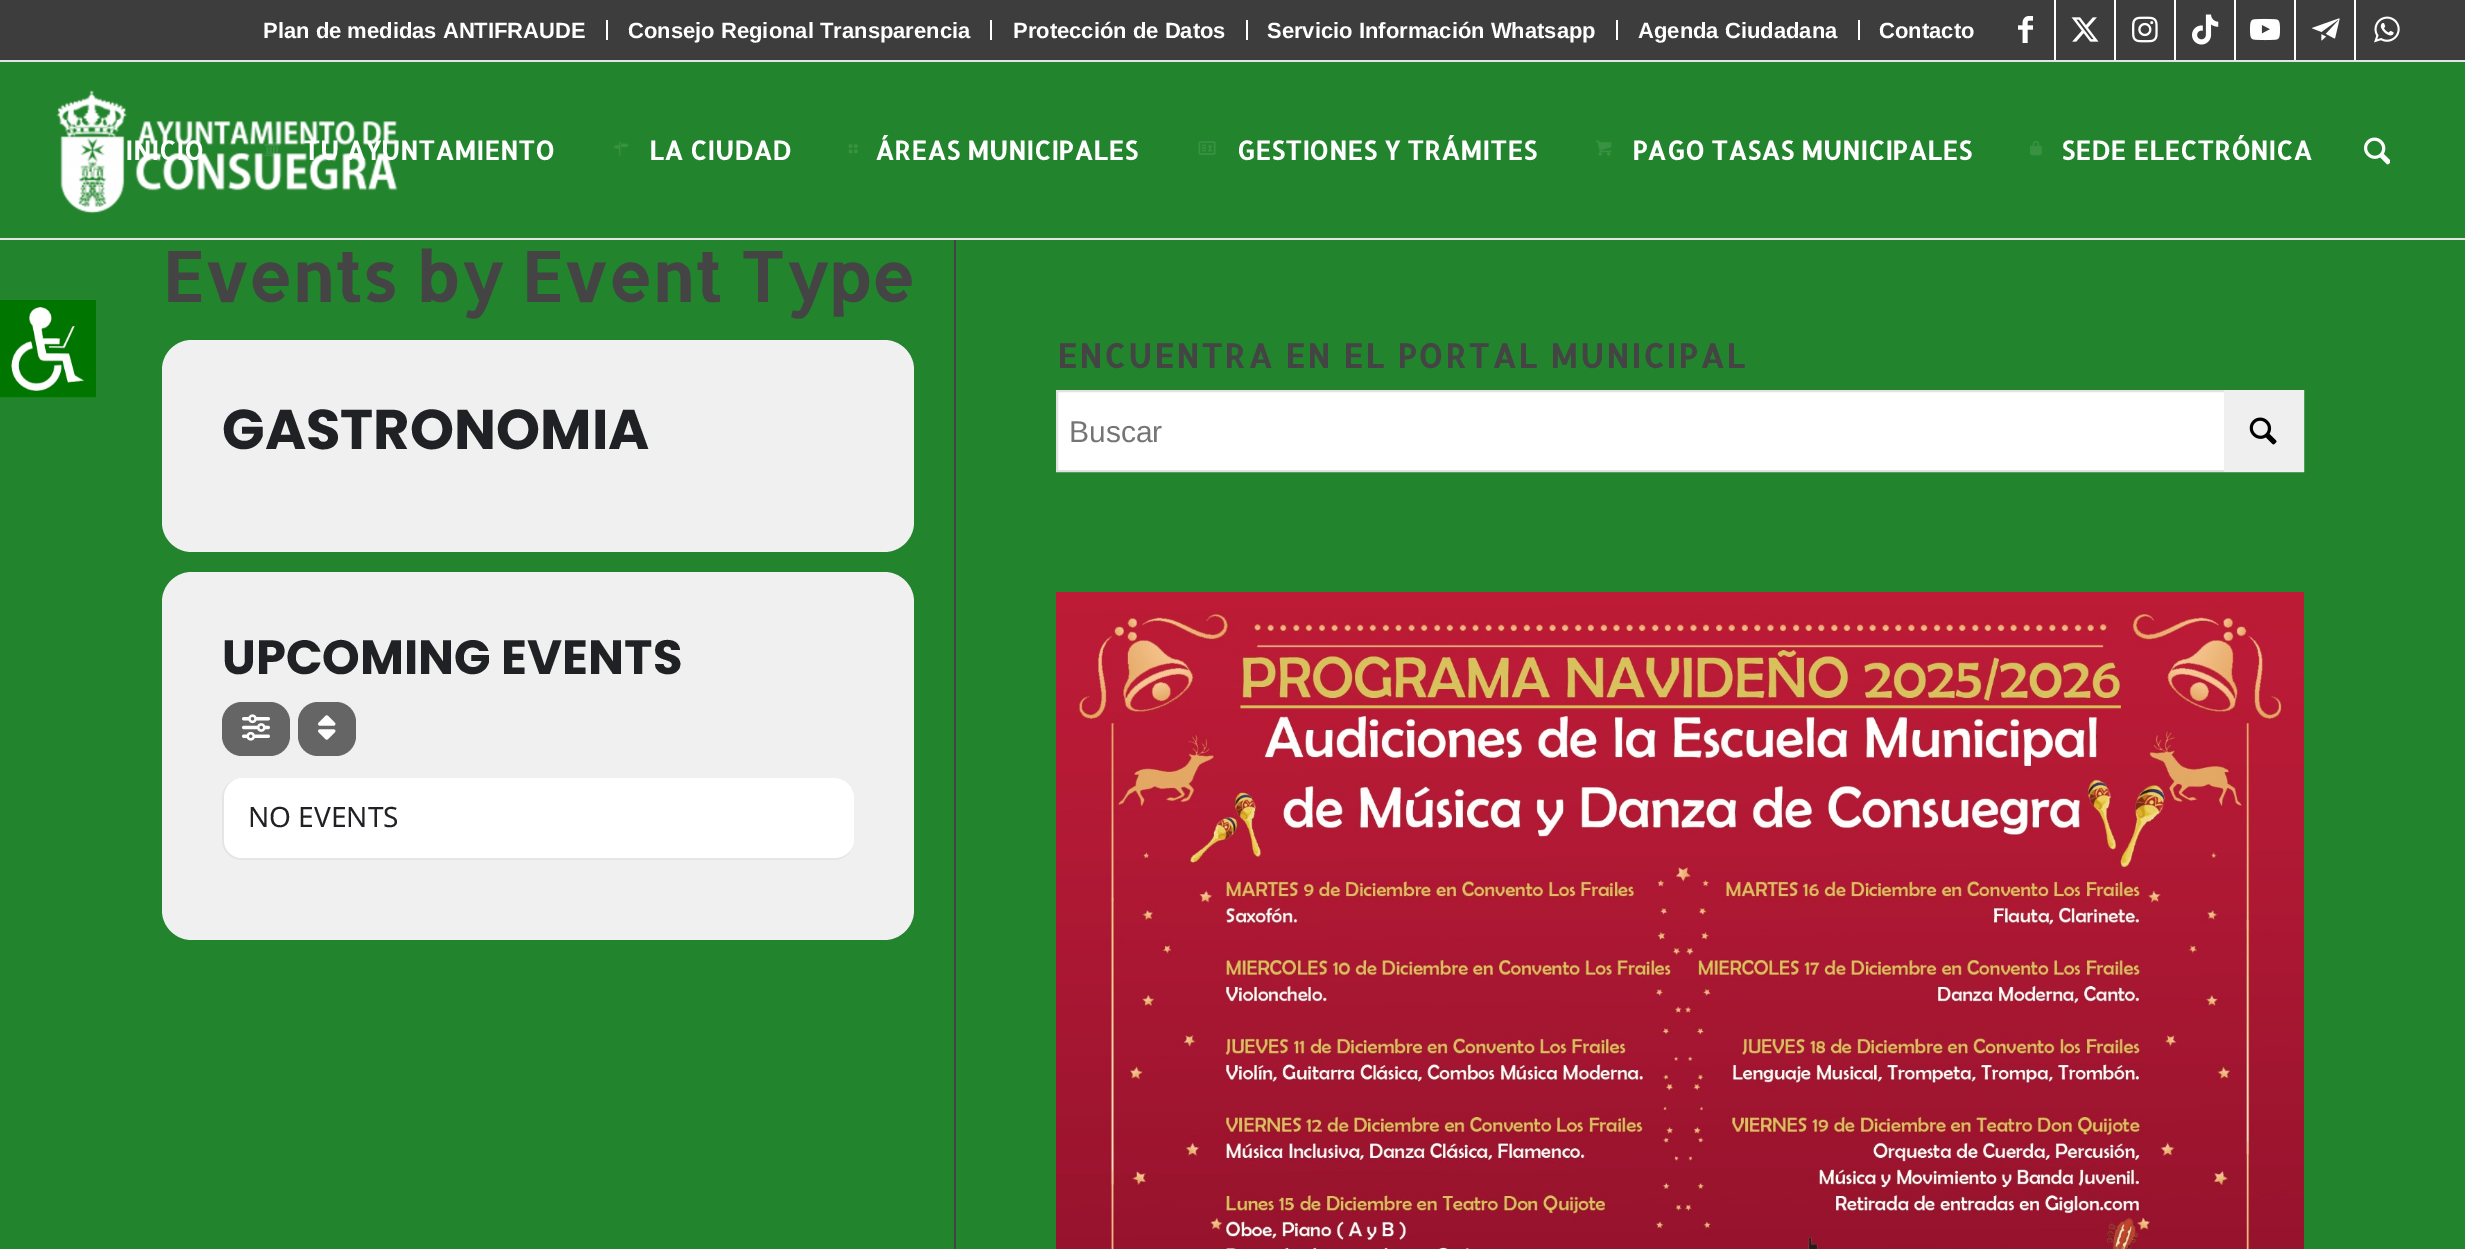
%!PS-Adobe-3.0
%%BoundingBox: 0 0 2465 1249
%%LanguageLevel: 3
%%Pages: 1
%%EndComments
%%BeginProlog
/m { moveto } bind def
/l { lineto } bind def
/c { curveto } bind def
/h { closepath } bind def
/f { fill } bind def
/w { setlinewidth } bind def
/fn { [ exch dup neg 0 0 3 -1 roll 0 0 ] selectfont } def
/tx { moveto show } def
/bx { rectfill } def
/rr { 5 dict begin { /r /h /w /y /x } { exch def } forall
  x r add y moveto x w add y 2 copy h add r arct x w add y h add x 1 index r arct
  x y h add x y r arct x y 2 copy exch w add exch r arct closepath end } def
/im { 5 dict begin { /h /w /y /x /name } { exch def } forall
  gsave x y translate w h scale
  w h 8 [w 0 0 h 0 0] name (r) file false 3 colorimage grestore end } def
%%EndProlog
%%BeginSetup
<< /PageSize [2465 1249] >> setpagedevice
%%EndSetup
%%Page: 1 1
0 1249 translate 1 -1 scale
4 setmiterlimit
0.133 0.522 0.176 setrgbcolor
0 0 2465 1249 bx
(image0.raw) 0 300 96 98 im
0.239 setgray
0 0 2465 60 bx
0.902 0.89 0.902 setrgbcolor
0 60 2465 2 bx
1 setgray
606 20 2 20 bx
/LiberationSans-Bold 22 fn
(Plan de medidas ANTIFRAUDE) 263 38 tx
990 20 2 20 bx
(Consejo Regional Transparencia) 628 38 tx
1246 20 2 20 bx
(Protección de Datos) 1013 38 tx
1616 20 2 20 bx
(Servicio Información Whatsapp) 1267 38 tx
1858 20 2 20 bx
(Agenda Ciudadana) 1638 38 tx
(Contacto) 1879 38 tx
2054 0 2 60 bx
(image1.raw) 2018 16 15 27 im
2114 0 2 60 bx
(image2.raw) 2071 17 28 25 im
2174 0 2 60 bx
(image3.raw) 2132 16 26 27 im
2234 0 2 60 bx
(image4.raw) 2192 14 27 31 im
2294 0 2 60 bx
(image5.raw) 2250 18 30 23 im
2354 0 2 60 bx
(image6.raw) 2312 18 28 23 im
(image7.raw) 2374 16 26 27 im
0.267 setgray
954 238 2 1011 bx
0.902 0.89 0.902 setrgbcolor
0 238 2465 2 bx
(image8.raw) 56 90 342 124 im
(image9.raw) 92 146 12 9 im
/Allerta-Bold 26 fn
1 setgray
(INICIO) 125 160 tx
(image10.raw) 264 141 17 16 im
(TU AYUNTAMIENTO) 303 160 tx
(image11.raw) 614 142 15 14 im
(LA CIUDAD) 649 160 tx
(image12.raw) 848 144 10 10 im
(ÁREAS MUNICIPALES) 875 160 tx
(image13.raw) 1198 141 18 14 im
(GESTIONES Y TRÁMITES) 1237 160 tx
(image14.raw) 1596 140 16 16 im
(PAGO TASAS MUNICIPALES) 1632 160 tx
(image15.raw) 2030 141 12 15 im
(SEDE ELECTRÓNICA) 2061 160 tx
(image16.raw) 2364 137 26 28 im
/Allerta-Bold 68 fn
0.267 setgray
(Events by Event Type) 162 302 tx
0.941 setgray
162 340 752 212 30 rr f
/Poppins-Bold 56 fn
0.125 0.129 0.141 setrgbcolor
(GASTRONOMIA) 222 449 tx
0.941 setgray
162 572 752 368 30 rr f
/Poppins-Bold 48 fn
0.125 0.129 0.141 setrgbcolor
(UPCOMING EVENTS) 222 674 tx
0.396 setgray
222 702 68 54 20 rr f
(image17.raw) 242 714 28 27 im
298 702 58 54 20 rr f
(image18.raw) 318 715 18 25 im
0.898 setgray
242 778 m 834 778 l 845 778 854 787 854 798 c 854 840 l 854 851 845 860 834 860 c 242 860 l 231 860 222 851 222 840 c 222 798 l 222 787 231 778 242 778 c h 242 778 m 834 778 l 845 778 854 787 854 798 c 854 840 l 854 850 845 858 834 858 c 242 858 l 232 858 224 850 224 840 c 224 798 l 224 787 232 778 242 778 c h eofill
1 setgray
242 778 m 232 778 224 787 224 798 c 224 840 l 224 850 232 858 242 858 c 834 858 l 845 858 854 850 854 840 c 854 798 l 854 787 845 778 834 778 c h f
/NotoSans-Regular 28 fn
0.125 0.129 0.141 setrgbcolor
(NO EVENTS) 248 827 tx
/Allerta-Bold 33 fn
0.267 setgray
1057 368 m 2 0 (ENCUENTRA EN EL PORTAL MUNICIPAL) ashow
1 setgray
1058 392 1166 78 bx
0.882 setgray
2 w
1057 391 1246 80 rectstroke
0.937 setgray
2224 390 80 82 bx
/LiberationSans-Regular 30 fn
0.459 setgray
(Buscar) 1069 442 tx
(image19.raw) 2249 417 28 28 im
(image20.raw) 1056 592 1248 657 im
showpage
%%EOF
